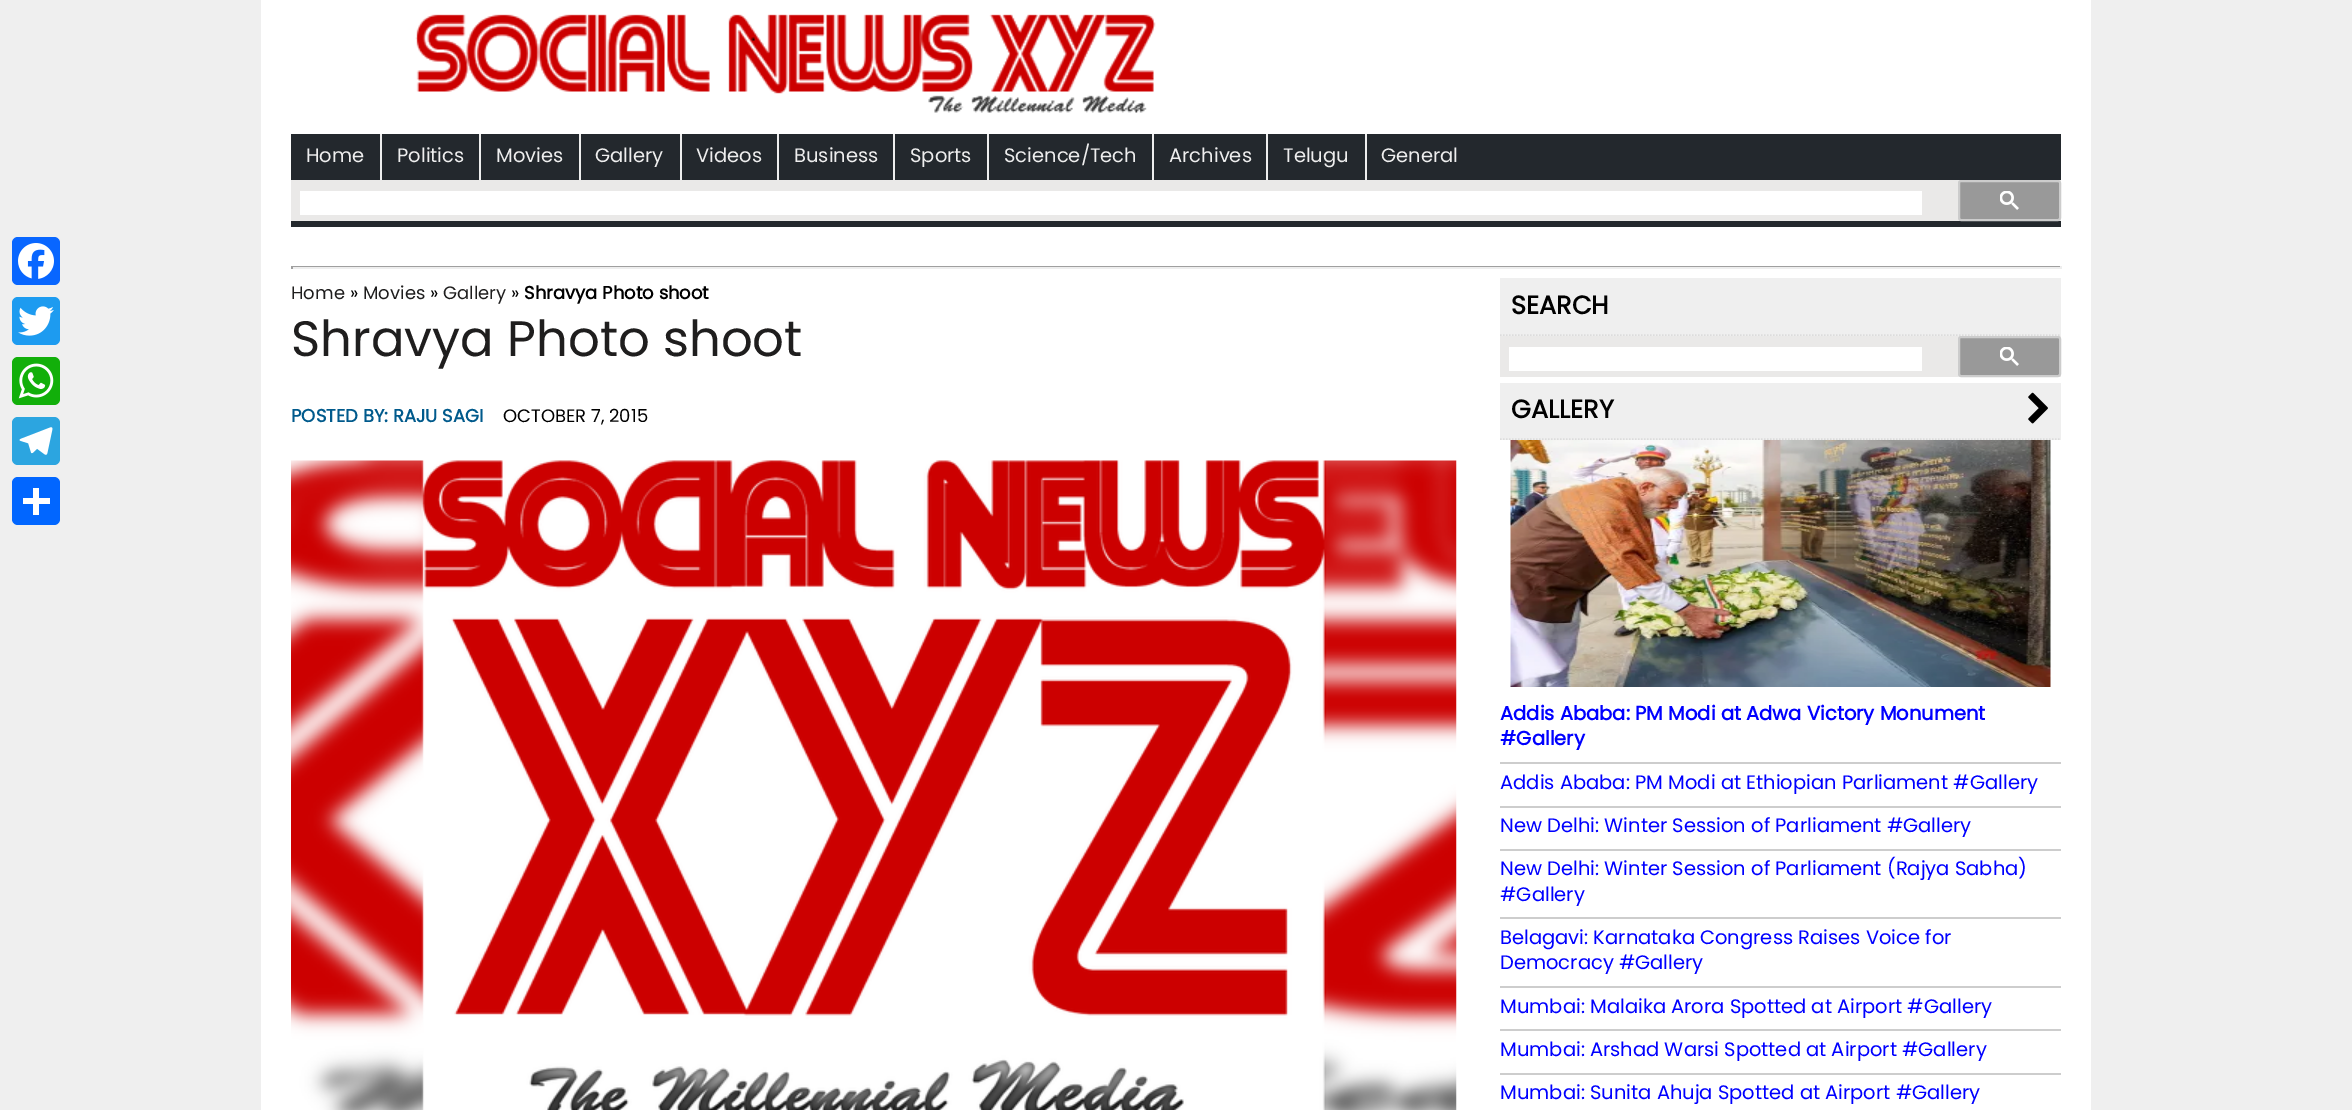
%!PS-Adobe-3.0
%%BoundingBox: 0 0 2352 1110
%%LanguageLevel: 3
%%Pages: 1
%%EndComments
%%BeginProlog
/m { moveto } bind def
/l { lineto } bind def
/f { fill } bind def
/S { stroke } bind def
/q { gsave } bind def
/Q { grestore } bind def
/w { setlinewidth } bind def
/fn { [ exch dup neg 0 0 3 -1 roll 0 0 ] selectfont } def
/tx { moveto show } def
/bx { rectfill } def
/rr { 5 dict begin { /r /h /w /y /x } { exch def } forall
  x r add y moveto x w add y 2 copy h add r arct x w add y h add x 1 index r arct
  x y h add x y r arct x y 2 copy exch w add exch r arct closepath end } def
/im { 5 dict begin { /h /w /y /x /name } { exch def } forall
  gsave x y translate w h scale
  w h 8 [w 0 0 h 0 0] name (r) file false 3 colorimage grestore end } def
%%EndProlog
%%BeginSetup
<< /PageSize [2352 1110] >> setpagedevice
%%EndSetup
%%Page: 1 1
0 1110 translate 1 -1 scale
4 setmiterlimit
0.937 setgray
0 0 2352 1110 bx
0.031 0.4 1 setrgbcolor
12 237 48 48 6 rr f
(image0.raw) 18 243 36 36 im
0.114 0.608 0.941 setrgbcolor
12 297 48 48 6 rr f
(image1.raw) 18 306 36 30 im
0.071 0.686 0.039 setrgbcolor
12 357 48 48 6 rr f
(image2.raw) 18 363 36 36 im
0.173 0.647 0.878 setrgbcolor
12 417 48 48 6 rr f
(image3.raw) 19 427 34 28 im
0.004 0.4 1 setrgbcolor
12 477 48 48 6 rr f
1 setgray
33 488 6 27 bx
23 498 27 6 bx
261 0 1830 1110 bx
(image4.raw) 415 14 741 99 im
0.137 0.157 0.176 setrgbcolor
291 134 1770 93 bx
/Poppins-Regular 19.5 fn
0.933 setgray
(Home) 306 162 tx
380 134 2 46 bx
(Politics) 397 162 tx
479 134 2 46 bx
(Movies) 496 162 tx
579 134 2 46 bx
(Gallery) 595 162 tx
680 134 2 46 bx
(Videos) 696 162 tx
777 134 2 46 bx
(Business) 794 162 tx
893 134 2 46 bx
(Sports) 910 162 tx
987 134 2 46 bx
(Science/Tech) 1004 162 tx
1152 134 2 46 bx
(Archives) 1169 162 tx
1266 134 2 46 bx
(Telugu) 1283 162 tx
1365 134 2 46 bx
(General) 1381 162 tx
0.918 0.914 0.91 setrgbcolor
291 180 1770 41 bx
1 setgray
300 191 1622 24 bx
0.6 setgray
1959 181 101 39 2 rr q f Q
0.8 setgray
2 w
S
(image5.raw) 2000 191 19 19 im
0.624 setgray
291 266 1770 1 bx
0.933 setgray
2060 266 2 3 bx
291 267 1770 2 bx
0.624 setgray
291 266 2 3 bx
/Poppins-Regular 18 fn
0.122 0.118 0.118 setrgbcolor
(Home) 291 299 tx
0 setgray
(») 350 299 tx
0.122 0.118 0.118 setrgbcolor
(Movies) 363 299 tx
0 setgray
(») 430 299 tx
0.122 0.118 0.118 setrgbcolor
(Gallery) 443 299 tx
0 setgray
(») 511 299 tx
/Poppins-Bold 18 fn
(Shravya Photo shoot) 524 299 tx
/Poppins-Regular 49.75 fn
0.122 0.118 0.118 setrgbcolor
(Shravya Photo shoot) 291 356 tx
/Poppins-Bold 18 fn
0 0.353 0.549 setrgbcolor
(POSTED BY: RAJU SAGI) 291 422 tx
/Poppins-Regular 18 fn
0 setgray
(OCTOBER 7, 2015) 503 422 tx
(image6.raw) 291 460 1166 650 im
0.937 setgray
1500 278 561 58 bx
0.863 setgray
1.5 w
[1.5 1.5] 0 setdash
1500 335 m 2061 335 l S
/Poppins-Bold 25.5 fn
0 setgray
(SEARCH) 1511 314 tx
0.918 0.914 0.91 setrgbcolor
1500 336 561 41 bx
1 setgray
1509 347 413 24 bx
0.6 setgray
1959 337 101 39 2 rr q f Q
0.8 setgray
2 w
[] 0 setdash
S
(image5.raw) 2000 347 19 19 im
0.937 setgray
1500 383 561 57 bx
0.863 setgray
1.5 w
[1.5 1.5] 0 setdash
1500 439 m 2061 439 l S
0 setgray
(GALLERY) 1511 418 tx
(image7.raw) 2028 392 20 32 im
(image8.raw) 1510 440 541 247 im
/Poppins-Bold 19.5 fn
0 0 1 setrgbcolor
(Addis Ababa: PM Modi at Adwa Victory Monument) 1500 720 tx
(#Gallery) 1500 745 tx
0.804 setgray
1500 762 561 2 bx
/Poppins-Regular 19.5 fn
0 0 1 setrgbcolor
(Addis Ababa: PM Modi at Ethiopian Parliament #Gallery) 1500 789 tx
0.804 setgray
1500 806 561 2 bx
0 0 1 setrgbcolor
(New Delhi: Winter Session of Parliament #Gallery) 1500 832 tx
0.804 setgray
1500 849 561 2 bx
0 0 1 setrgbcolor
(New Delhi: Winter Session of Parliament \(Rajya Sabha\)) 1500 875 tx
(#Gallery) 1500 901 tx
0.804 setgray
1500 917 561 2 bx
0 0 1 setrgbcolor
(Belagavi: Karnataka Congress Raises Voice for) 1500 944 tx
(Democracy #Gallery) 1500 969 tx
0.804 setgray
1500 986 561 2 bx
0 0 1 setrgbcolor
(Mumbai: Malaika Arora Spotted at Airport #Gallery) 1500 1013 tx
0.804 setgray
1500 1029 561 2 bx
0 0 1 setrgbcolor
(Mumbai: Arshad Warsi Spotted at Airport #Gallery) 1500 1056 tx
0.804 setgray
1500 1073 561 2 bx
0 0 1 setrgbcolor
(Mumbai: Sunita Ahuja Spotted at Airport #Gallery) 1500 1099 tx
showpage
%%EOF
